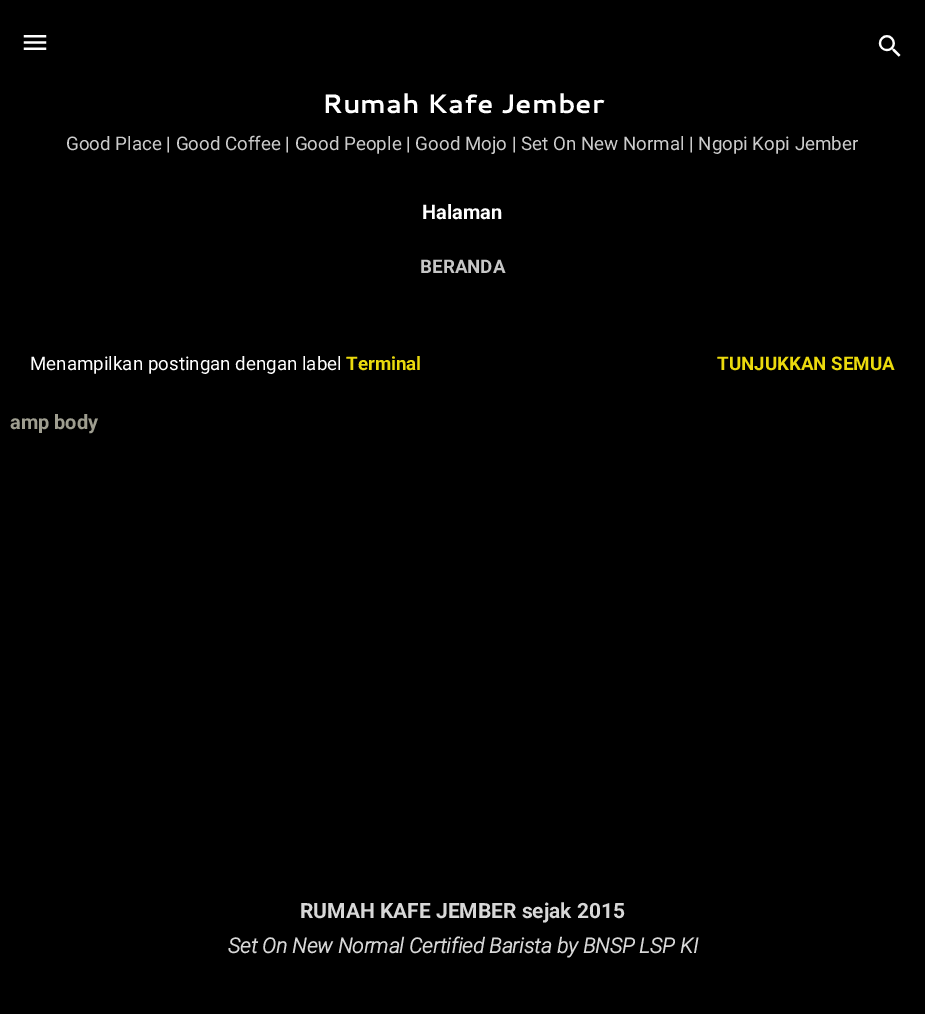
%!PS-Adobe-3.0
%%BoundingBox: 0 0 925 1014
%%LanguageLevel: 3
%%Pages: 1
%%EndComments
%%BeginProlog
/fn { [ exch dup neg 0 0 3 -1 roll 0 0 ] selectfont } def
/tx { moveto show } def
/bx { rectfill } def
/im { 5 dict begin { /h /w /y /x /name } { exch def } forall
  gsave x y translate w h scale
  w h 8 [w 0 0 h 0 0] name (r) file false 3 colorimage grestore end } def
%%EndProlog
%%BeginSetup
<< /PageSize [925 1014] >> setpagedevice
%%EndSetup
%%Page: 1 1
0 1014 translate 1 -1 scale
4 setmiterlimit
0 setgray
0 0 925 1014 bx
(image0.raw) 23 35 24 15 im
(image1.raw) 878 35 23 22 im
/Cantarell-Bold 26.75 fn
1 setgray
(Rumah Kafe Jember) 322 113 tx
/Roboto-Regular 18.75 fn
0.8 setgray
(Good Place | Good Coffee | Good People | Good Mojo | Set On New Normal | Ngopi Kopi Jember) 66 150 tx
/Roboto-Bold 20 fn
1 setgray
(Halaman) 422 219 tx
/Roboto-Bold 18.75 fn
0.776 setgray
(BERANDA) 420 273 tx
/Roboto-Regular 18.75 fn
1 setgray
(Menampilkan postingan dengan label) 30 370 tx
/Roboto-Bold 18.75 fn
0.922 0.855 0.051 setrgbcolor
(Terminal) 346 370 tx
(TUNJUKKAN SEMUA) 717 370 tx
/Roboto-Bold 20 fn
0.624 0.62 0.565 setrgbcolor
(amp body) 10 429 tx
/Roboto-Bold 21 fn
0.847 setgray
(RUMAH KAFE JEMBER sejak 2015) 300 918 tx
/Roboto-BoldItalic 21 fn
(Set On New Normal Certified Barista by BNSP LSP KI) 228 953 tx
showpage
%%EOF
